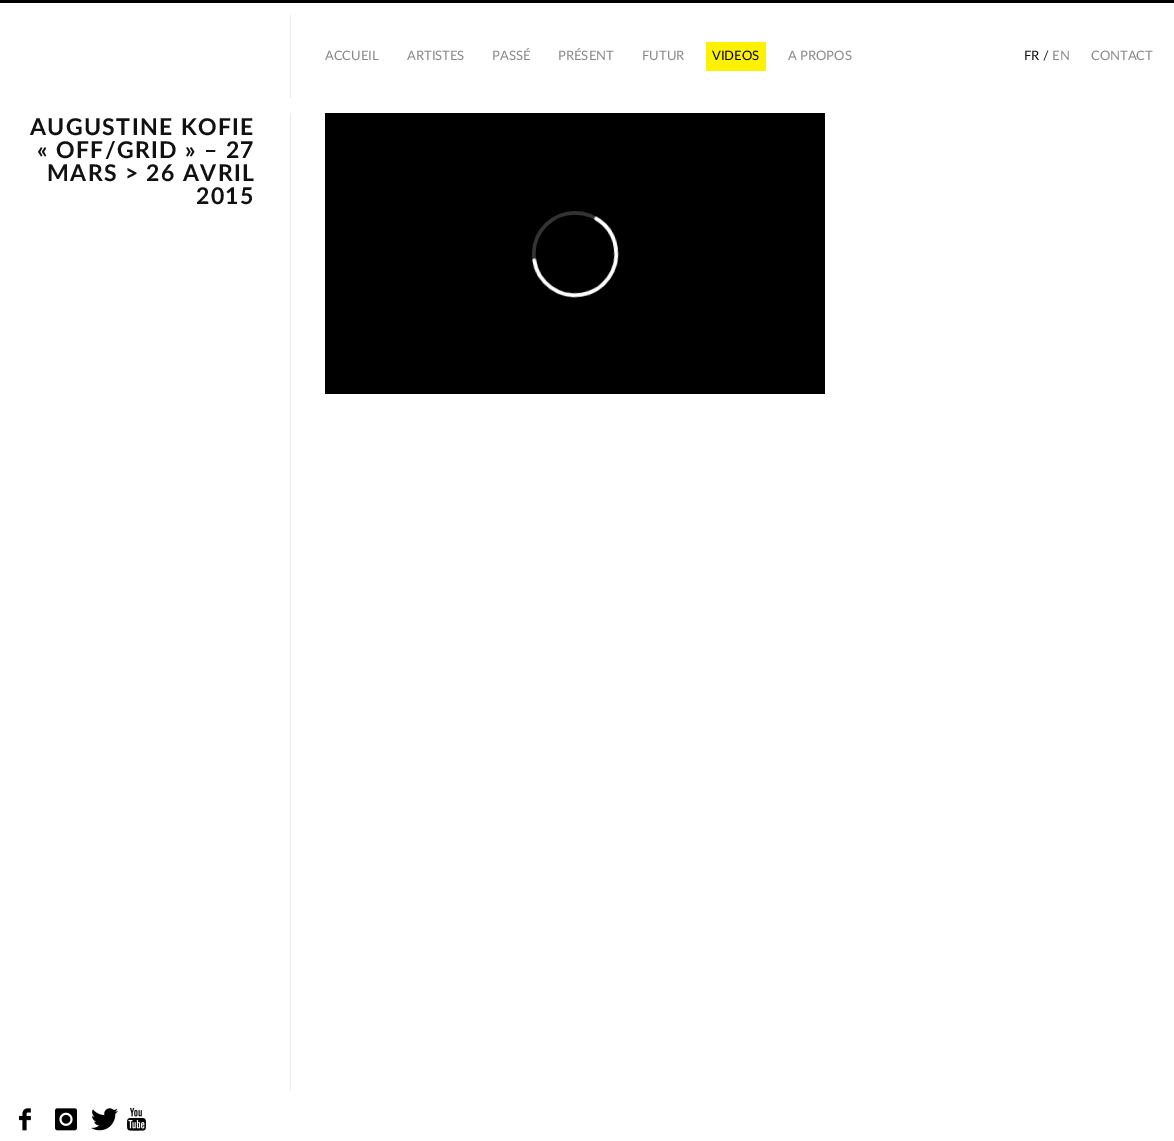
%!PS-Adobe-3.0
%%BoundingBox: 0 0 1174 1141
%%LanguageLevel: 3
%%Pages: 1
%%EndComments
%%BeginProlog
/m { moveto } bind def
/fn { [ exch dup neg 0 0 3 -1 roll 0 0 ] selectfont } def
/tx { moveto show } def
/bx { rectfill } def
/im { 5 dict begin { /h /w /y /x /name } { exch def } forall
  gsave x y translate w h scale
  w h 8 [w 0 0 h 0 0] name (r) file false 3 colorimage grestore end } def
%%EndProlog
%%BeginSetup
<< /PageSize [1174 1141] >> setpagedevice
%%EndSetup
%%Page: 1 1
0 1141 translate 1 -1 scale
4 setmiterlimit
1 setgray
0 0 1174 1141 bx
0 setgray
0 0 1174 3 bx
0.922 setgray
290 15 1 83 bx
/Lato-Regular 13 fn
0.533 setgray
(ACCUEIL) 325 60 tx
(ARTISTES) 407 60 tx
(PASSÉ) 492 60 tx
(PRÉSENT) 558 60 tx
(FUTUR) 642 60 tx
1 0.949 0 setrgbcolor
706 42 60 29 bx
0 setgray
(VIDEOS) 712 60 tx
0.533 setgray
(A PROPOS) 788 60 tx
0.067 setgray
(FR /) 1024 60 tx
0.533 setgray
(EN) 1052 60 tx
(CONTACT) 1091 60 tx
0.922 setgray
290 113 1 978 bx
/Lato-Bold 23 fn
0.067 setgray
30 135 m 1.4 0 (AUGUSTINE KOFIE) ashow
37 158 m 1.4 0 (« OFF/GRID » – 27) ashow
47 181 m 1.4 0 (MARS > 26 AVRIL) ashow
196 204 m 1.4 0 (2015) ashow
(image0.raw) 325 113 500 281 im
(image1.raw) 19 1108 12 23 im
(image2.raw) 55 1108 22 23 im
(image3.raw) 91 1108 27 23 im
(image4.raw) 127 1107 19 24 im
showpage
%%EOF
